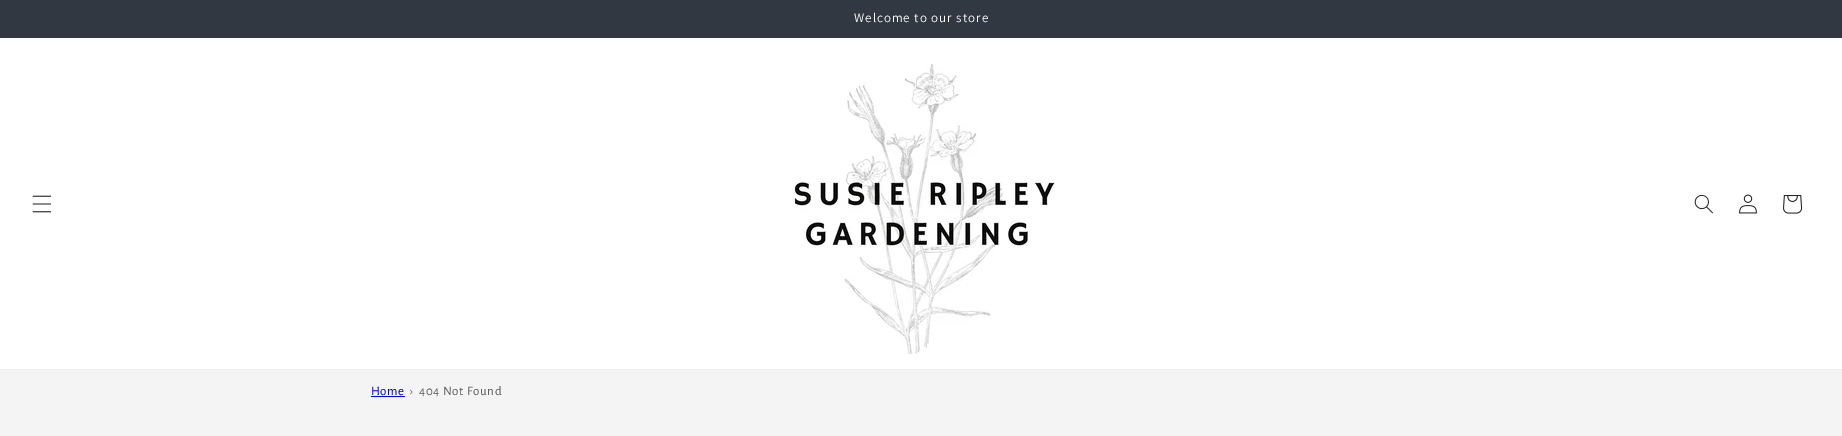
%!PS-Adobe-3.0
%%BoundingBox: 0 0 1842 436
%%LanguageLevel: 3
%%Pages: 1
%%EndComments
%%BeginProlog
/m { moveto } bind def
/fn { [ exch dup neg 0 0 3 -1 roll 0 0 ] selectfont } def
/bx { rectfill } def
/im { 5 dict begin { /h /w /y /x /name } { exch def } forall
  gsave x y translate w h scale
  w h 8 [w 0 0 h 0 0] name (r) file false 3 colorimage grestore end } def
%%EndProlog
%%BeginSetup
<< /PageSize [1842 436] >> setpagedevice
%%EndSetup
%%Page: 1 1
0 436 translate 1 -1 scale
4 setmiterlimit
0.957 setgray
0 0 1842 436 bx
0.196 0.22 0.255 setrgbcolor
0 0 1842 38 bx
/Assistant-Regular 13 fn
1 setgray
854 22 m 1 0 (Welcome to our store) ashow
0 38 1842 331 bx
0.933 setgray
0 369 1842 1 bx
(image0.raw) 32 195 20 18 im
(image1.raw) 791 64 264 290 im
(image2.raw) 1694 194 19 20 im
(image3.raw) 1739 194 18 20 im
(image4.raw) 1783 195 20 19 im
/AlegreyaSans-Regular 13 fn
0 0 0.933 setrgbcolor
371 395 m 0.6 0 (Home) ashow
371 396 34 1 bx
0.365 0.369 0.373 setrgbcolor
410 395 m 0.6 0 (›) ashow
419 395 m 0.6 0 (404 Not Found) ashow
showpage
%%EOF
